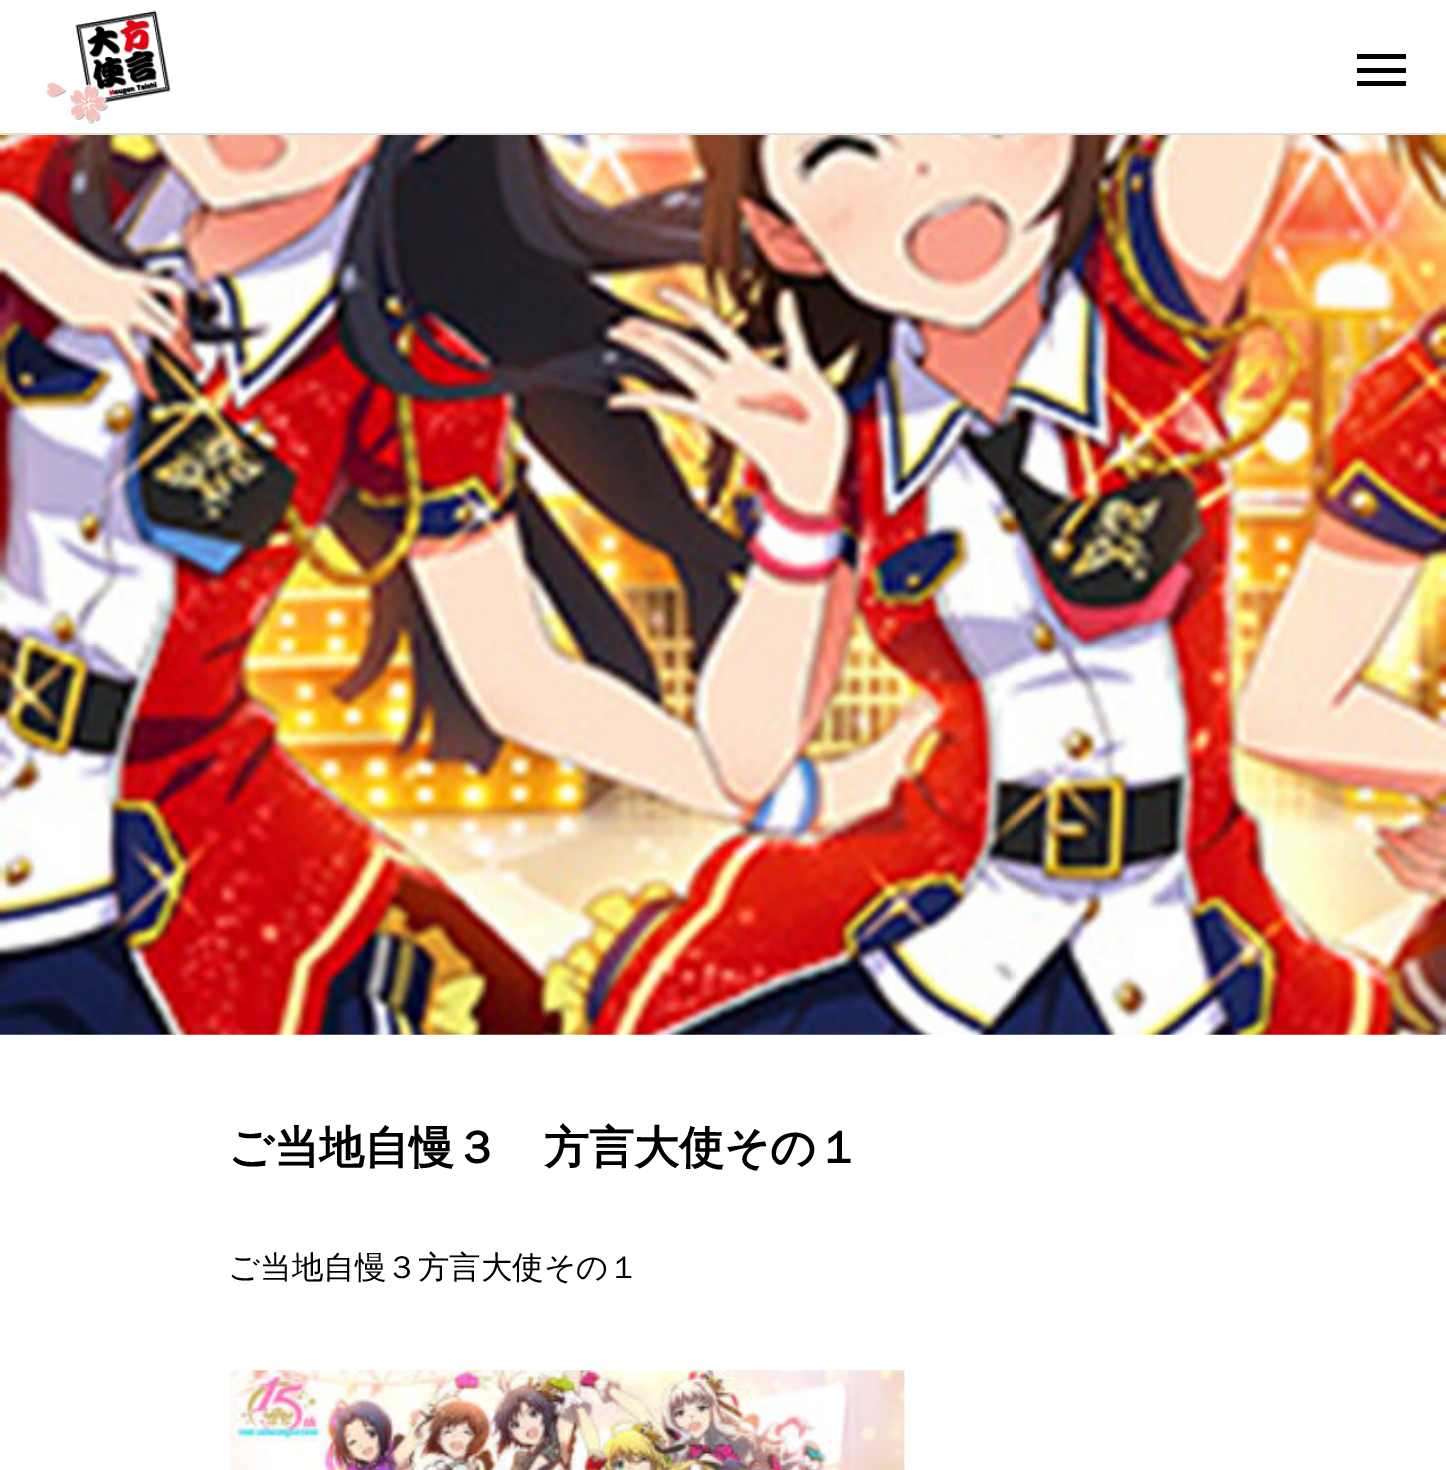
%!PS-Adobe-3.0
%%BoundingBox: 0 0 1446 1470
%%LanguageLevel: 3
%%Pages: 1
%%EndComments
%%BeginProlog
/fn { [ exch dup neg 0 0 3 -1 roll 0 0 ] selectfont } def
/tx { moveto show } def
/bx { rectfill } def
/im { 5 dict begin { /h /w /y /x /name } { exch def } forall
  gsave x y translate w h scale
  w h 8 [w 0 0 h 0 0] name (r) file false 3 colorimage grestore end } def
%%EndProlog
%%BeginSetup
<< /PageSize [1446 1470] >> setpagedevice
%%EndSetup
%%Page: 1 1
0 1470 translate 1 -1 scale
4 setmiterlimit
1 setgray
0 0 1446 1470 bx
0.867 setgray
0 133 1446 2 bx
(image0.raw) 46 10 125 114 im
0 setgray
1357 54 49 5 bx
1357 68 49 5 bx
1357 81 49 5 bx
(image1.raw) 0 135 1446 900 im
/WenQuanYiZenHei-Bold 45 fn
(ご当地自慢３　方言大使その１) 228 1163 tx
/WenQuanYiZenHei-Medium 31.5 fn
(ご当地自慢３方言大使その１) 228 1278 tx
(image2.raw) 229 1370 676 100 im
showpage
%%EOF
